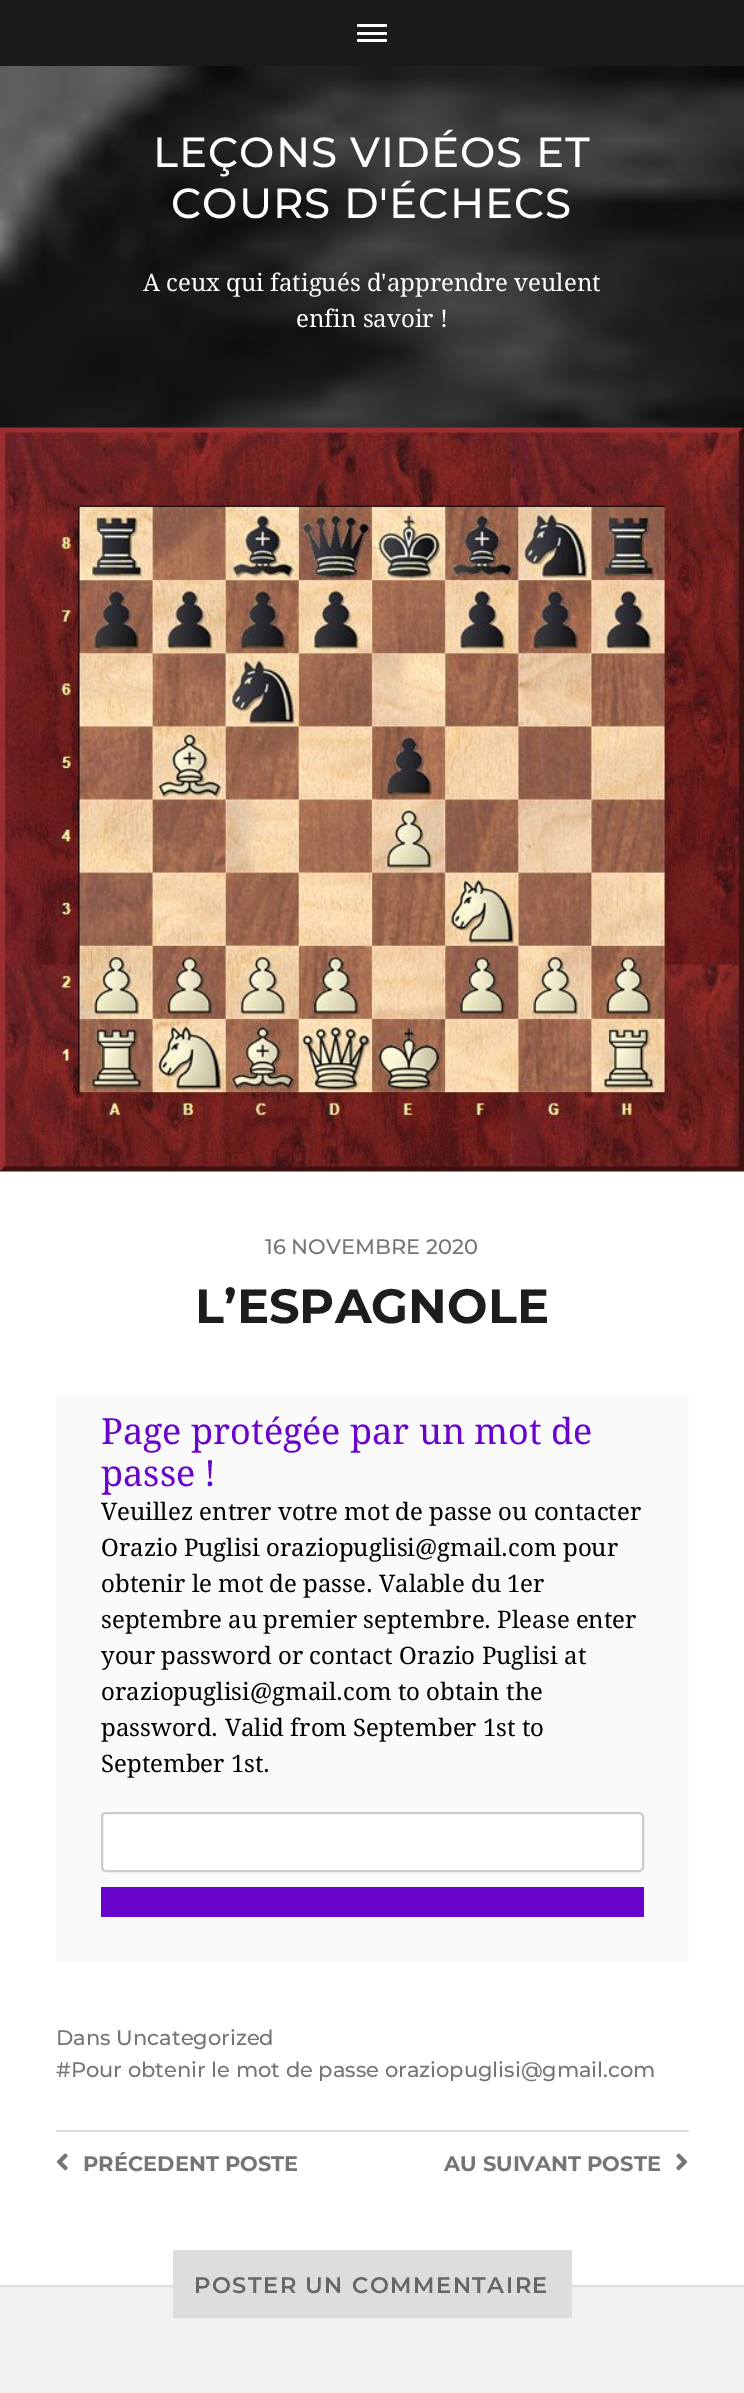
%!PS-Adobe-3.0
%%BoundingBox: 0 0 744 2393
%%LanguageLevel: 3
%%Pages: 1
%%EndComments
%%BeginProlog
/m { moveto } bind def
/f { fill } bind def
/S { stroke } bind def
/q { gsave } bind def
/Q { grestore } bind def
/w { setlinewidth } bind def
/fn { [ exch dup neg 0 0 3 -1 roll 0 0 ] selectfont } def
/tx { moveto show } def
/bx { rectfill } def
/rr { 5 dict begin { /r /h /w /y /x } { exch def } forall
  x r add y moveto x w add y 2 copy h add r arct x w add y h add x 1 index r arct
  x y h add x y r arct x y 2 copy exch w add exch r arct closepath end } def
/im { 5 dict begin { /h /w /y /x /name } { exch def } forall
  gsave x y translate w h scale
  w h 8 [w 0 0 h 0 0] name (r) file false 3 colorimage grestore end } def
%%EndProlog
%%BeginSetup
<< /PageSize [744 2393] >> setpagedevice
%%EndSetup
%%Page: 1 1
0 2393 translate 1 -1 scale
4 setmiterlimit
0.114 setgray
0 0 744 2393 bx
0.102 setgray
0 0 744 66 5 rr f
1 setgray
357 24 30 3 1.5 rr f
357 32 30 3 1.5 rr f
357 39 30 3 1.5 rr f
(image0.raw) 0 66 744 362 im
/Montserrat-Thin 42 fn
153 167 m 1 0 (LEÇONS VIDÉOS ET) ashow
171 218 m 1 0 (COURS D'ÉCHECS) ashow
/DroidSerif-Regular 24 fn
(A ceux qui fatigués d'apprendre veulent) 143 291 tx
(enfin savoir !) 296 327 tx
0 1171 744 1114 bx
(image1.raw) 0 427 744 745 im
/Montserrat-Thin 21 fn
0.459 setgray
(16 NOVEMBRE 2020) 265 1254 tx
/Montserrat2-Thin 48 fn
0.114 setgray
(L’ESPAGNOLE) 195 1323 tx
0.98 setgray
56 1395 633 567 bx
/DroidSerif-Regular 36 fn
0.408 0.016 0.8 setrgbcolor
(Page protégée par un mot de) 101 1444 tx
(passe !) 101 1486 tx
/DroidSerif-Regular 24 fn
0 setgray
(Veuillez entrer votre mot de passe ou contacter) 101 1520 tx
(Orazio Puglisi oraziopuglisi@gmail.com pour) 101 1556 tx
(obtenir le mot de passe. Valable du 1er) 101 1592 tx
(septembre au premier septembre. Please enter) 101 1628 tx
(your password or contact Orazio Puglisi at) 101 1664 tx
(oraziopuglisi@gmail.com to obtain the) 101 1700 tx
(password. Valid from September 1st to) 101 1736 tx
(September 1st.) 101 1772 tx
1 setgray
102 1813 541 58 4 rr q f Q
0.8 setgray
2 w
S
0.408 0.016 0.8 setrgbcolor
101 1887 543 30 bx
/Montserrat-Thin 21 fn
0.459 setgray
(Dans Uncategorized) 56 2045 tx
(#Pour obtenir le mot de passe oraziopuglisi@gmail.com) 56 2077 tx
0.867 setgray
56 2130 633 2 bx
(image2.raw) 56 2153 12 18 im
/Montserrat2-Thin 21 fn
0.459 setgray
(PRÉCEDENT POSTE) 83 2171 tx
(AU SUIVANT POSTE) 444 2171 tx
(image3.raw) 676 2153 12 18 im
0.945 setgray
0 2287 744 106 bx
0.867 setgray
0 2285 744 2 bx
173 2250 399 68 bx
/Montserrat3-Thin 22.5 fn
0.4 setgray
194 2293 m 1.5 0 (POSTER UN COMMENTAIRE) ashow
showpage
%%EOF
